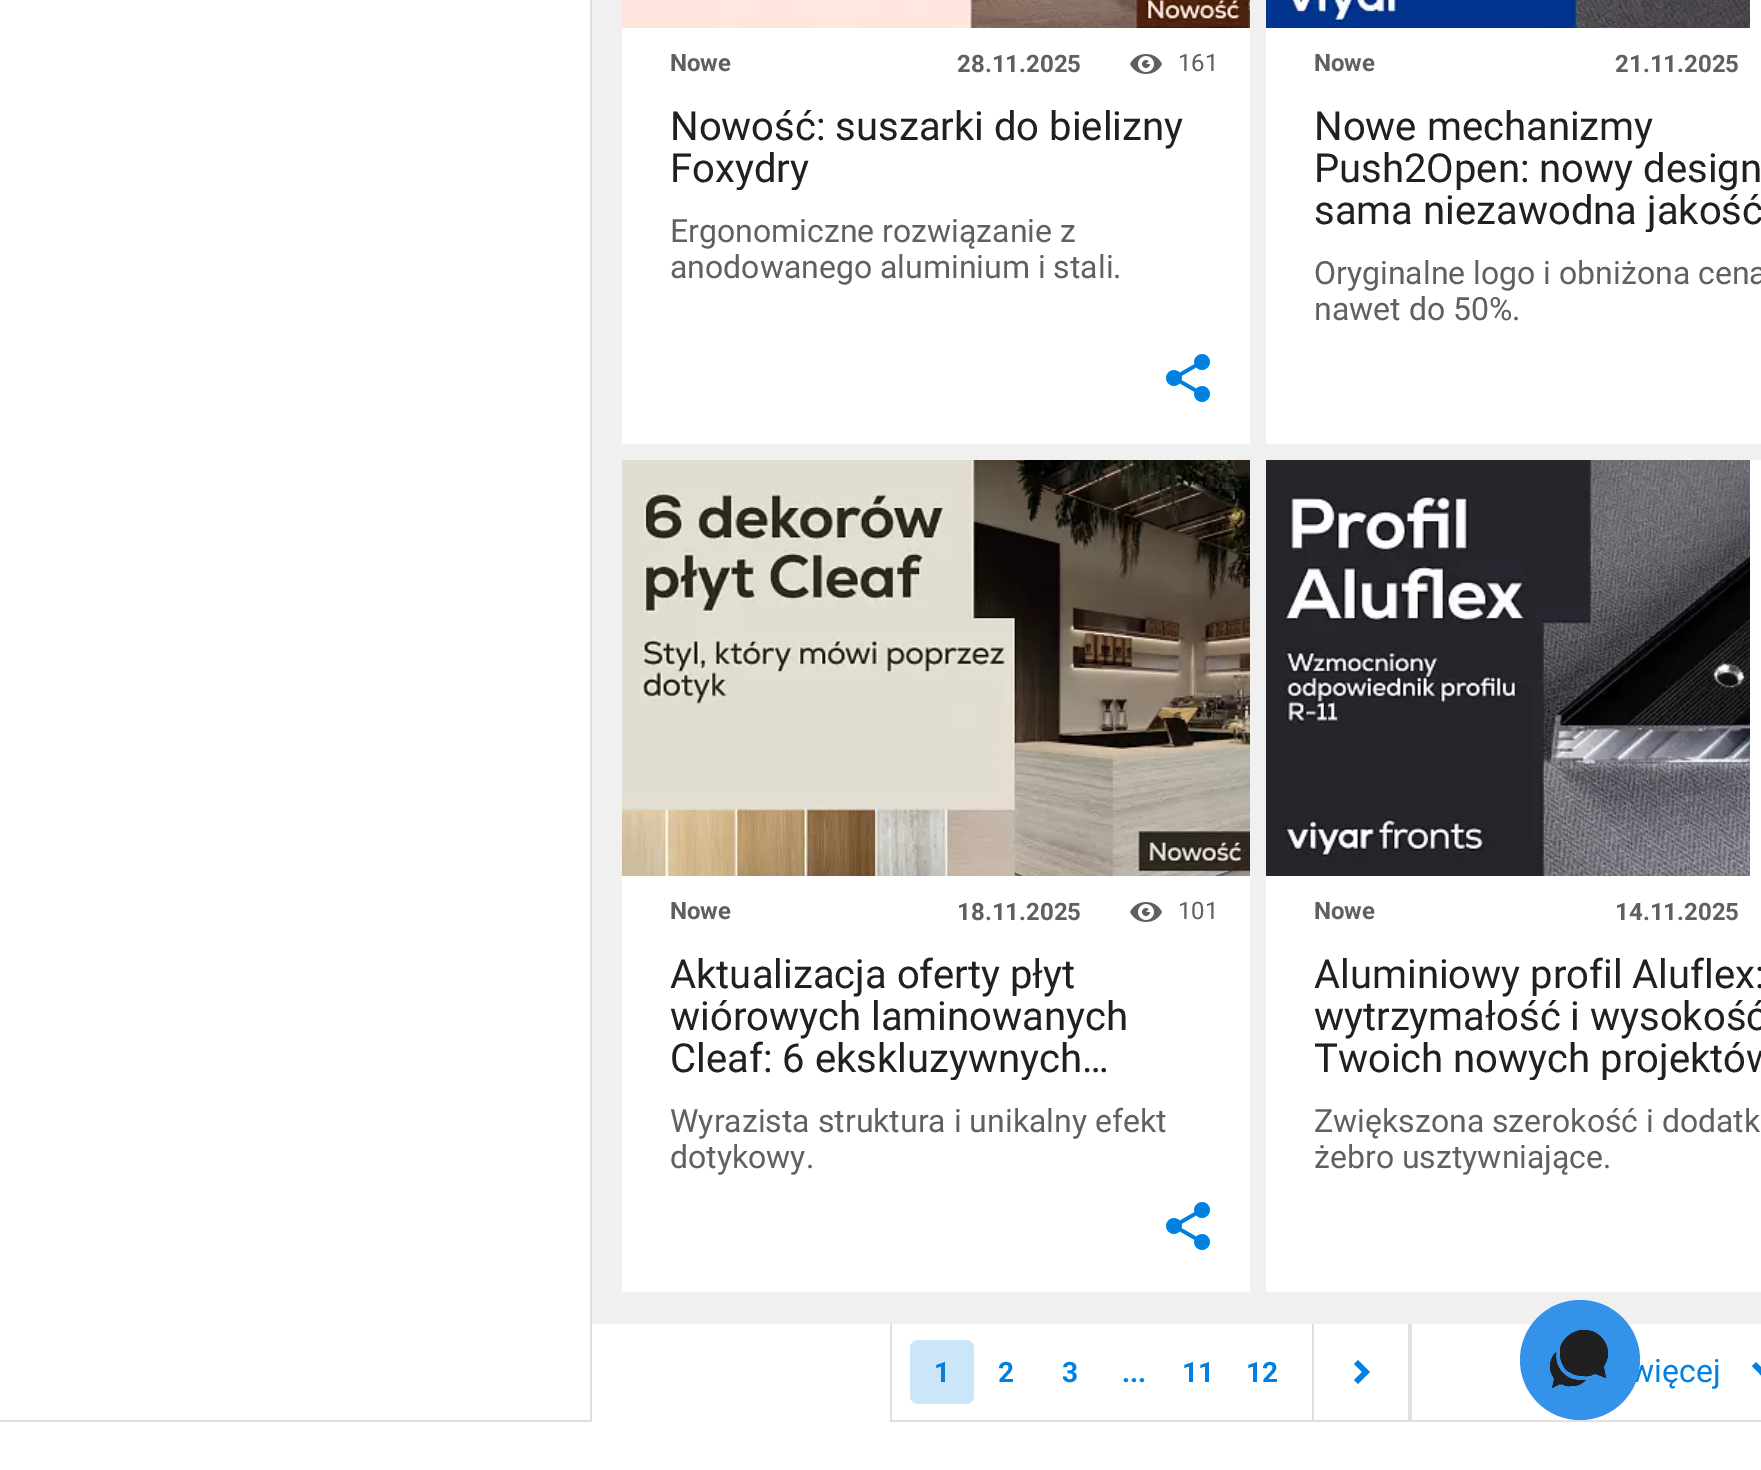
%!PS-Adobe-3.0
%%BoundingBox: 0 0 1761 1470
%%LanguageLevel: 3
%%Pages: 1
%%EndComments
%%BeginProlog
/m { moveto } bind def
/l { lineto } bind def
/h { closepath } bind def
/f { fill } bind def
/q { gsave } bind def
/Q { grestore } bind def
/fn { [ exch dup neg 0 0 3 -1 roll 0 0 ] selectfont } def
/tx { moveto show } def
/bx { rectfill } def
/ci { newpath 0 360 arc closepath } def
/rr { 5 dict begin { /r /h /w /y /x } { exch def } forall
  x r add y moveto x w add y 2 copy h add r arct x w add y h add x 1 index r arct
  x y h add x y r arct x y 2 copy exch w add exch r arct closepath end } def
/im { 5 dict begin { /h /w /y /x /name } { exch def } forall
  gsave x y translate w h scale
  w h 8 [w 0 0 h 0 0] name (r) file false 3 colorimage grestore end } def
%%EndProlog
%%BeginSetup
<< /PageSize [1761 1470] >> setpagedevice
%%EndSetup
%%Page: 1 1
0 1470 translate 1 -1 scale
4 setmiterlimit
1 setgray
0 0 1761 1470 bx
0.878 setgray
590 0 2 1422 bx
0 1420 592 2 bx
0.941 setgray
592 0 1169 1324 bx
1 setgray
622 28 628 416 bx
(image0.raw) 622 0 628 28 im
/Roboto-Bold 24 fn
0.376 setgray
(Nowe) 670 71 tx
(28.11.2025) 957 72 tx
(image1.raw) 1130 54 32 20 im
/Roboto-Regular 24 fn
(161) 1178 71 tx
/Roboto-Regular 40 fn
0.125 setgray
(Nowość: suszarki do bielizny) 670 140 tx
q
670 106 548 84 rectclip
(Foxydry) 670 182 tx
Q
/Roboto-Regular 32 fn
0.376 setgray
(Ergonomiczne rozwiązanie z) 670 242 tx
(anodowanego aluminium i stali.) 670 278 tx
(image2.raw) 1166 354 44 48 im
1 setgray
1266 0 495 444 bx
(image3.raw) 1266 0 484 28 im
/Roboto-Bold 24 fn
0.376 setgray
(Nowe) 1314 71 tx
(21.11.2025) 1615 72 tx
/Roboto-Regular 40 fn
0.125 setgray
(Nowe mechanizmy) 1314 140 tx
(Push2Open: nowy design) 1314 182 tx
q
1314 106 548 126 rectclip
(sama niezawodna jakość) 1314 224 tx
Q
/Roboto-Regular 32 fn
0.376 setgray
(Oryginalne logo i obniżona cena) 1314 284 tx
(nawet do 50%.) 1314 320 tx
1 setgray
622 876 628 416 bx
(image4.raw) 622 460 628 416 im
/Roboto-Bold 24 fn
0.376 setgray
(Nowe) 670 919 tx
(18.11.2025) 957 920 tx
(image1.raw) 1130 902 32 20 im
/Roboto-Regular 24 fn
(101) 1178 919 tx
/Roboto-Regular 40 fn
0.125 setgray
(Aktualizacja oferty płyt) 670 988 tx
(wiórowych laminowanych) 670 1030 tx
q
670 954 548 126 rectclip
(Cleaf: 6 ekskluzywnych…) 670 1072 tx
Q
/Roboto-Regular 32 fn
0.376 setgray
(Wyrazista struktura i unikalny efekt) 670 1132 tx
(dotykowy.) 670 1168 tx
(image2.raw) 1166 1202 44 48 im
1 setgray
1266 460 495 832 bx
(image5.raw) 1266 460 484 416 im
/Roboto-Bold 24 fn
0.376 setgray
(Nowe) 1314 919 tx
(14.11.2025) 1615 920 tx
/Roboto-Regular 40 fn
0.125 setgray
(Aluminiowy profil Aluflex:) 1314 988 tx
(wytrzymałość i wysokość) 1314 1030 tx
q
1314 954 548 126 rectclip
(Twoich nowych projektów) 1314 1072 tx
Q
/Roboto-Regular 32 fn
0.376 setgray
(Zwiększona szerokość i dodatk) 1314 1132 tx
(żebro usztywniające.) 1314 1168 tx
0.878 setgray
1410 1324 2 98 bx
890 1420 871 2 bx
1312 1324 2 96 bx
890 1324 2 96 bx
0.8 0.902 0.976 setrgbcolor
910 1340 64 64 8 rr f
/Roboto-Bold 28 fn
0 0.502 0.878 setrgbcolor
(1) 934 1382 tx
(2) 998 1382 tx
(3) 1062 1382 tx
(...) 1122 1382 tx
(11) 1182 1382 tx
(12) 1246 1382 tx
0.878 setgray
1408 1324 2 96 bx
0 0.502 0.878 setrgbcolor
1358 1360 m 1354 1364 l 1362 1372 l 1354 1380 l 1358 1384 l 1370 1372 l h f
/Roboto-Regular 32 fn
(więcej) 1630 1382 tx
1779 1362 m 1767.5 1374 l 1756 1362 l 1752 1366 l 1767.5 1382 l 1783 1366 l h f
0.204 0.576 0.91 setrgbcolor
1580 1360 60 ci f
(image6.raw) 1550 1330 58 58 im
showpage
%%EOF
